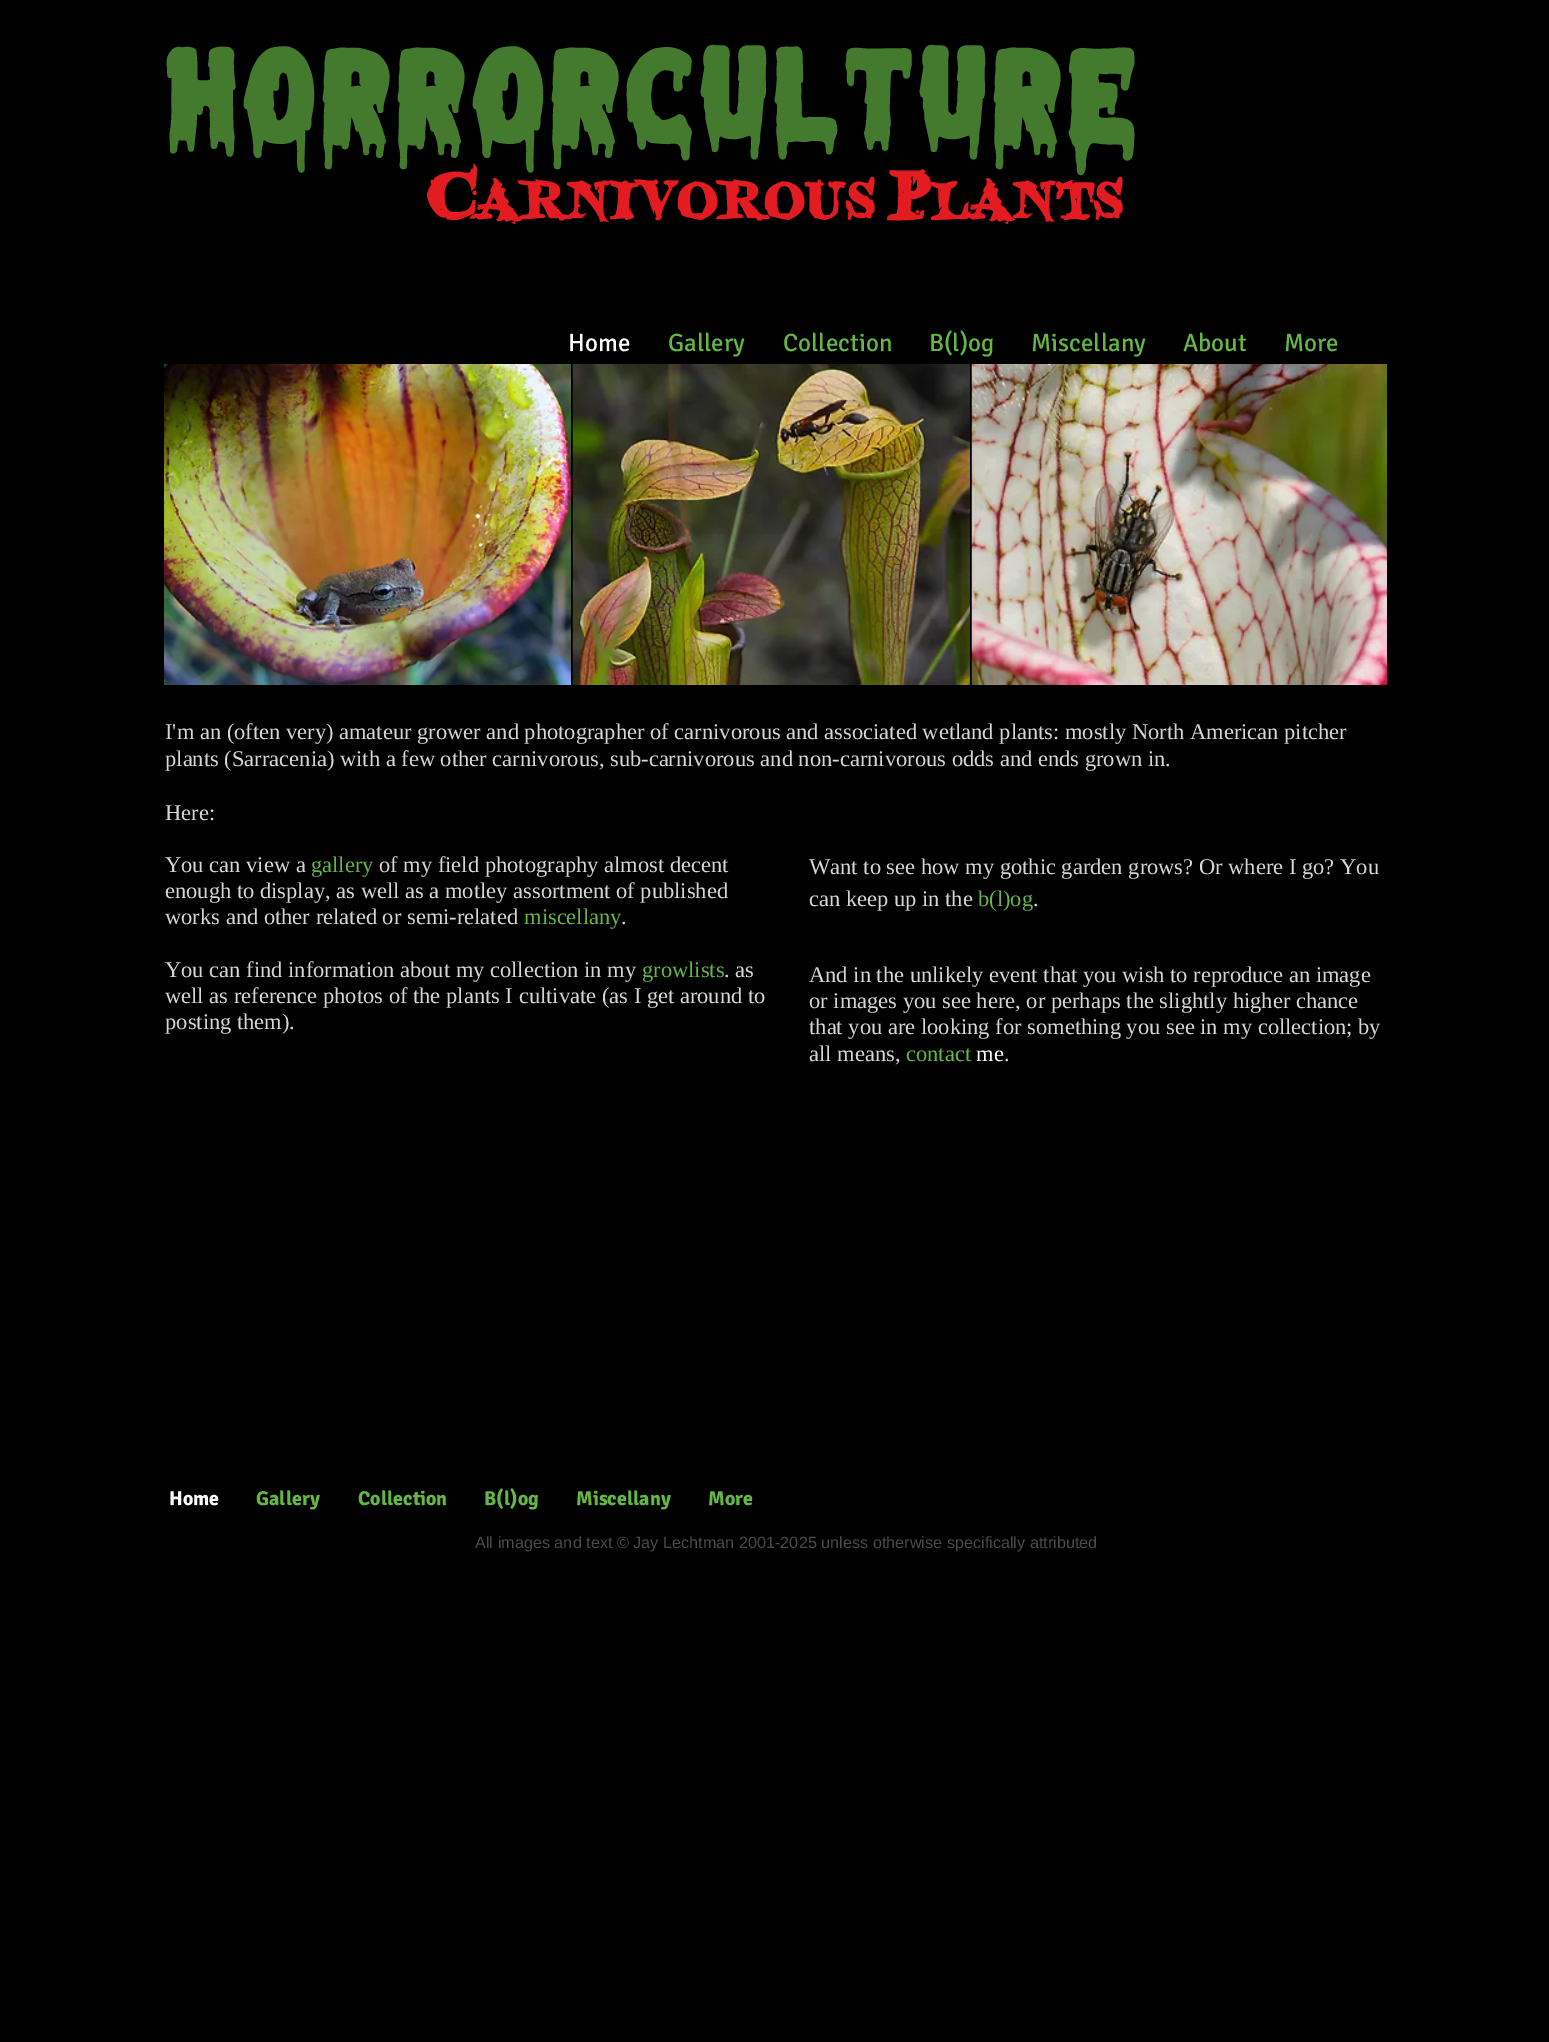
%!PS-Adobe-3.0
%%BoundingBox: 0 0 1549 2042
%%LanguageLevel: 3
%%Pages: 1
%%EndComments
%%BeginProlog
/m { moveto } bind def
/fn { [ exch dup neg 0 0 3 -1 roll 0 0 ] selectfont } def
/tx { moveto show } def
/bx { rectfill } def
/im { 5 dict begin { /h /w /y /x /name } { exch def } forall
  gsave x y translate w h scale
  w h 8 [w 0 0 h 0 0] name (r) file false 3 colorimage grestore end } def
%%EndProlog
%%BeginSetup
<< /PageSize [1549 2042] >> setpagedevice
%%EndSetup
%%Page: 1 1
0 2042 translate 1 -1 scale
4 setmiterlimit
0 setgray
0 0 1549 2042 bx
/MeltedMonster-Bold 131.25 fn
0.263 0.478 0.176 setrgbcolor
164 133 m 6.5 0 (Horrorculture) ashow
/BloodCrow-Bold 76.25 fn
0.886 0.11 0.129 setrgbcolor
(Carnivorous) 426 220 tx
(Plants) 888 220 tx
/Signika-Regular 25 fn
1 setgray
(Home) 568 351 tx
0.392 0.718 0.263 setrgbcolor
(Gallery) 668 351 tx
(Collection) 783 351 tx
(B\(l\)og) 929 351 tx
(Miscellany) 1031 351 tx
(About) 1183 351 tx
(More) 1284 351 tx
(image0.raw) 164 364 407 321 im
(image1.raw) 572 363 398 322 im
(image2.raw) 971 364 417 321 im
/LiberationSerif-Regular 22.5 fn
0.839 setgray
(I'm an \(often very\) amateur grower and photographer of carnivorous and associated wetland plants: mostly North American pitcher) 165 739 tx
(plants \(Sarracenia\) with a few other carnivorous, sub-carnivorous and non-carnivorous odds and ends grown in.) 165 766 tx
(Here:) 165 820 tx
(You can view a) 165 872 tx
0.392 0.718 0.263 setrgbcolor
(gallery) 311 872 tx
0.839 setgray
(of my field photography almost decent) 379 872 tx
(enough to display, as well as a motley assortment of published) 165 898 tx
(works and other related or semi-related) 165 924 tx
0.392 0.718 0.263 setrgbcolor
(miscellany) 524 924 tx
0.839 setgray
(.) 621 924 tx
(You can find information about my collection in my) 165 977 tx
0.392 0.718 0.263 setrgbcolor
(growlists) 642 977 tx
0.839 setgray
(. as) 724 977 tx
(well as reference photos of the plants I cultivate \(as I get around to) 165 1003 tx
(posting them\).) 165 1029 tx
(Want to see how my gothic garden grows? Or where I go? You) 809 874 tx
(can keep up in the) 809 906 tx
0.392 0.718 0.263 setrgbcolor
(b\(l\)og) 978 906 tx
0.839 setgray
(.) 1033 906 tx
(And in the unlikely event that you wish to reproduce an image) 809 982 tx
(or images you see here, or perhaps the slightly higher chance) 809 1008 tx
(that you are looking for something you see in my collection; by) 809 1034 tx
(all means,) 809 1061 tx
0.392 0.718 0.263 setrgbcolor
(contact) 906 1061 tx
1 setgray
(me) 976 1061 tx
0.839 setgray
(.) 1004 1061 tx
/Signika-Bold 20 fn
1 setgray
(Home) 169 1505 tx
0.392 0.718 0.263 setrgbcolor
(Gallery) 256 1505 tx
(Collection) 358 1505 tx
(B\(l\)og) 484 1505 tx
(Miscellany) 576 1505 tx
(More) 708 1505 tx
/LiberationSans-Regular 16.25 fn
0.29 setgray
(All images and text © Jay Lechtman 2001-2025 unless otherwise specifically attributed) 475 1548 tx
showpage
%%EOF
